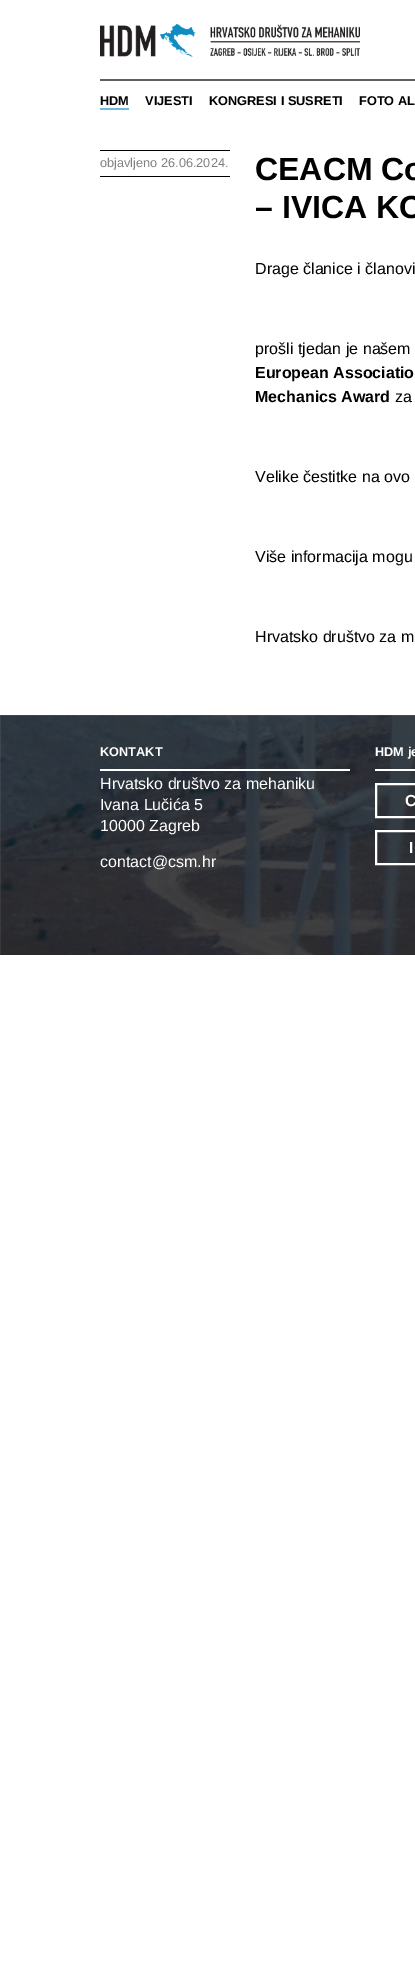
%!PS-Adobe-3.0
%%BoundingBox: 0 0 415 1980
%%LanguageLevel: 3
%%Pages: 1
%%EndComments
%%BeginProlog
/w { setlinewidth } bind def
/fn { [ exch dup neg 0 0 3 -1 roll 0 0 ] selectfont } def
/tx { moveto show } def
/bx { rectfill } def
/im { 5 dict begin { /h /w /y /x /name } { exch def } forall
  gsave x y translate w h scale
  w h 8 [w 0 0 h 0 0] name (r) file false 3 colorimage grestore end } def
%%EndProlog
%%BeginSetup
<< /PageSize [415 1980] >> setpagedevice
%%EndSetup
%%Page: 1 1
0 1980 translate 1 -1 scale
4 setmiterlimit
1 setgray
0 0 415 1980 bx
(image0.raw) 100 24 260 33 im
0.376 setgray
100 79 315 2 bx
/LiberationSans-Bold 12.75 fn
0 setgray
(HDM) 100 105 tx
0.435 0.729 0.855 setrgbcolor
100 108 29 2 bx
0 setgray
(VIJESTI) 145 105 tx
(KONGRESI I SUSRETI) 209 105 tx
(FOTO AL) 359 105 tx
100 150 130 1 bx
100 176 130 1 bx
/LiberationSans-Regular 12.75 fn
0.502 setgray
(objavljeno 26.06.2024.) 100 167 tx
/LiberationSans-Bold 32 fn
0 setgray
(CEACM Co) 255 180 tx
(– IVICA KO) 255 218 tx
/LiberationSans-Regular 16 fn
(Drage članice i članovi) 255 274 tx
(prošli tjedan je našem) 255 354 tx
/LiberationSans-Bold 16 fn
(European Associatio) 255 378 tx
(Mechanics Award) 255 402 tx
/LiberationSans-Regular 16 fn
(za) 395 402 tx
(Velike čestitke na ovo) 255 482 tx
(Više informacija mogu) 255 562 tx
(Hrvatsko društvo za m) 255 642 tx
(image1.raw) 0 715 415 240 im
1 setgray
100 769 250 2 bx
/LiberationSans-Bold 12.75 fn
(KONTAKT) 100 756 tx
/LiberationSans-Regular 16 fn
(Hrvatsko društvo za mehaniku) 100 789 tx
(Ivana Lučića 5) 100 810 tx
(10000 Zagreb) 100 831 tx
(contact@csm.hr) 100 867 tx
375 769 40 2 bx
/LiberationSans-Bold 12.75 fn
(HDM je) 375 756 tx
2 w
376 784 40 33 rectstroke
/LiberationSans-Bold 16 fn
(C) 405 806 tx
376 831 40 33 rectstroke
(I) 409 853 tx
showpage
%%EOF
